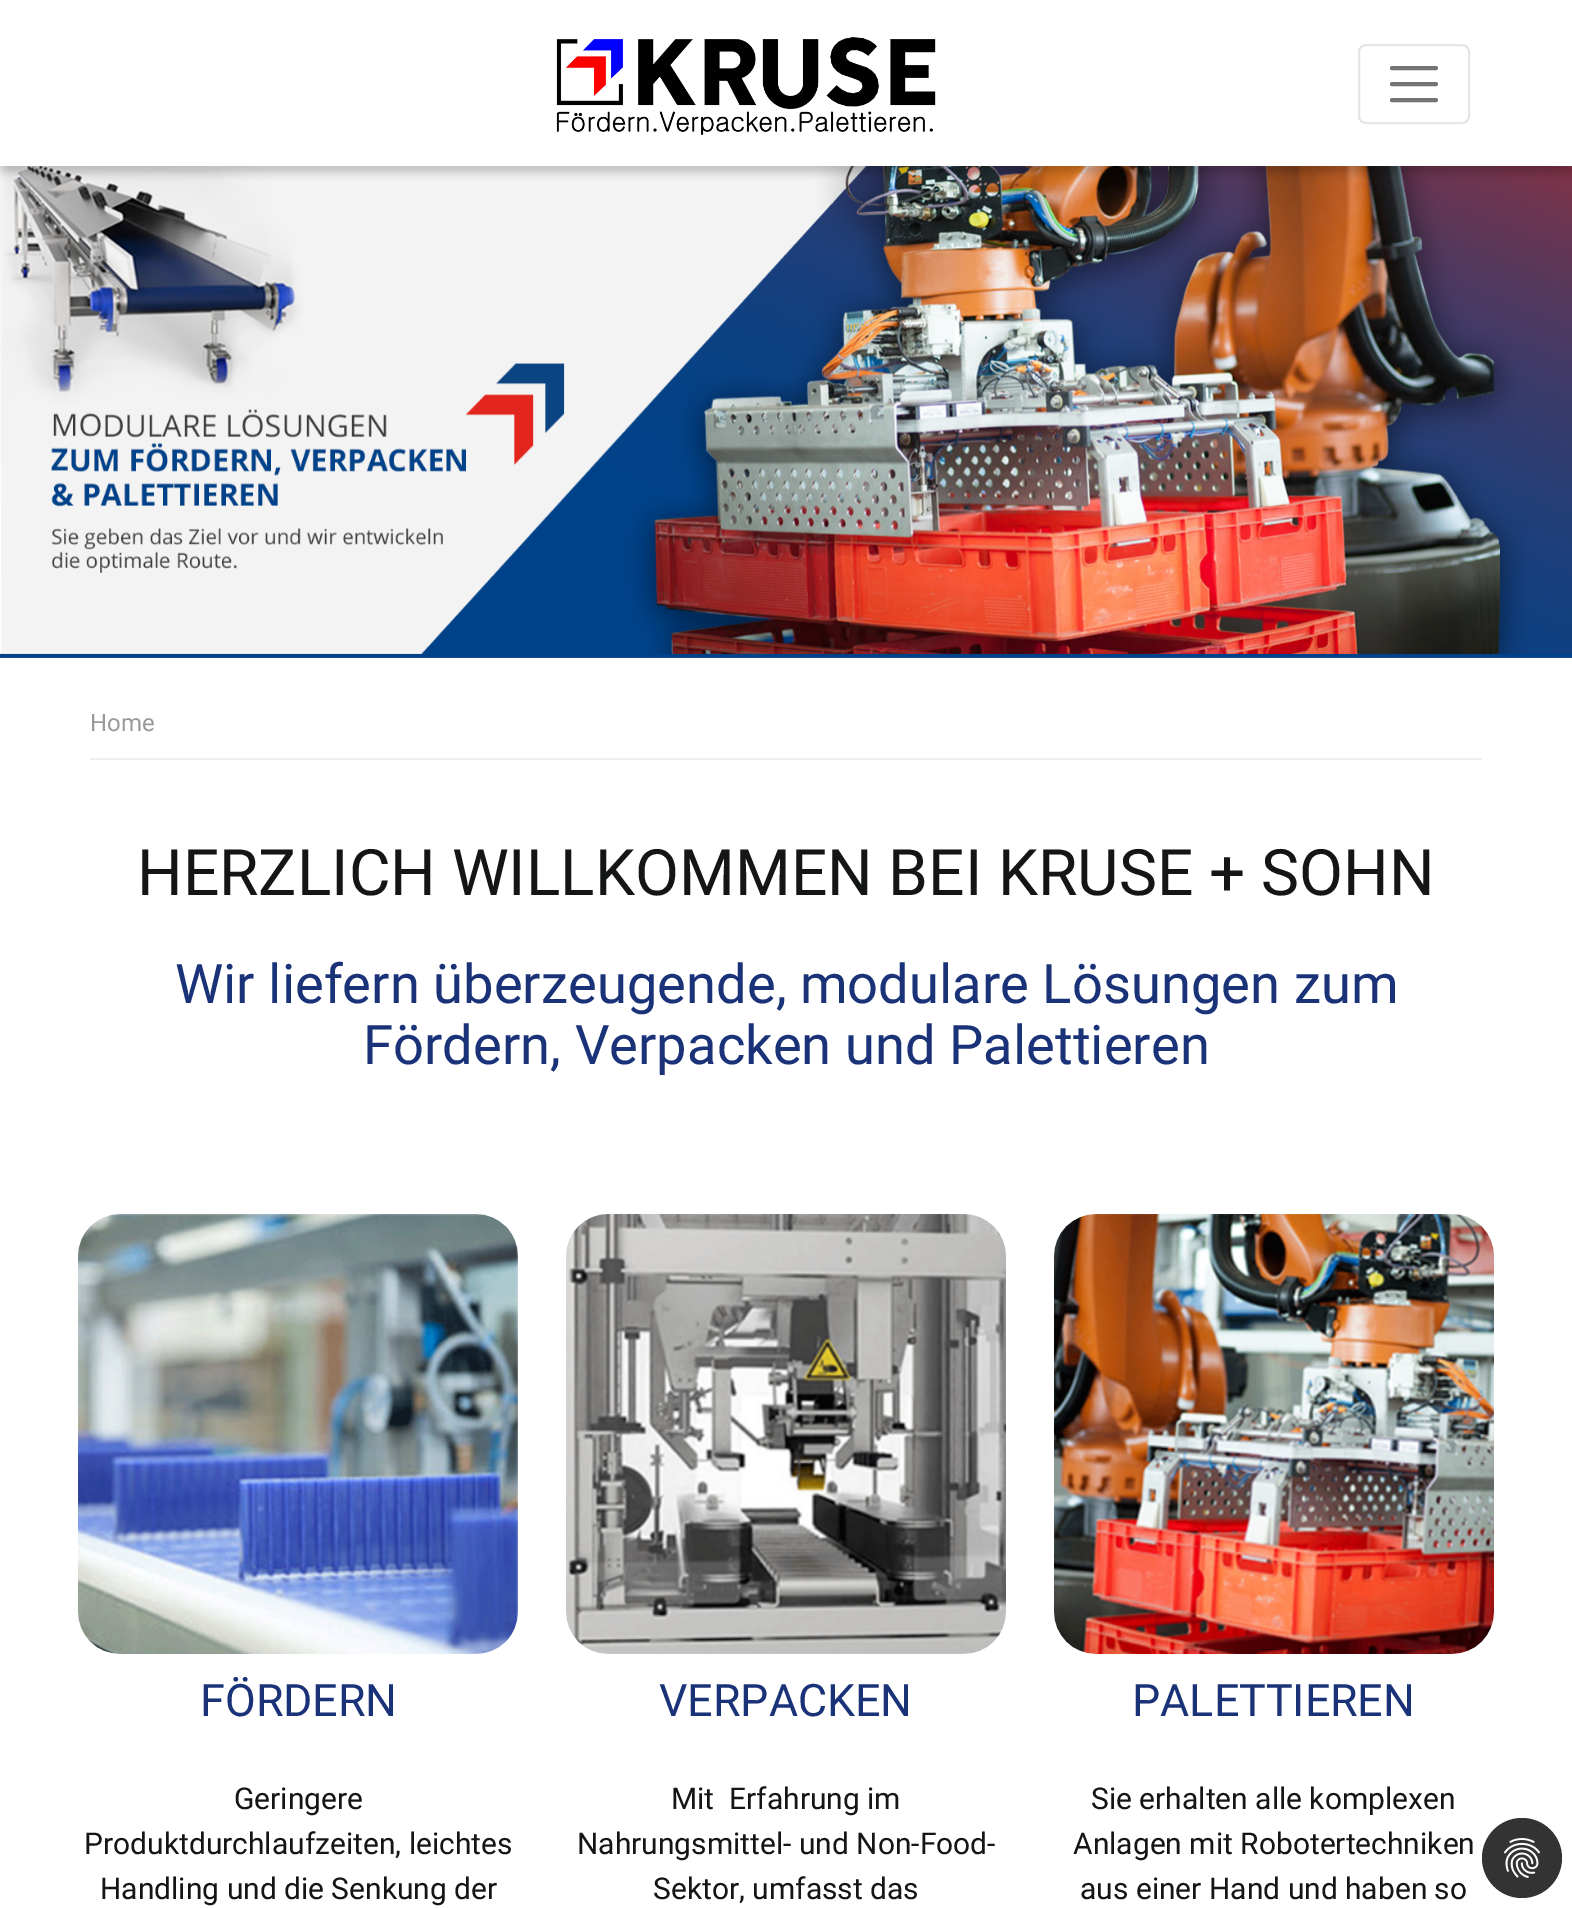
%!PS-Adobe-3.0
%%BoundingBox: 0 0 1572 1908
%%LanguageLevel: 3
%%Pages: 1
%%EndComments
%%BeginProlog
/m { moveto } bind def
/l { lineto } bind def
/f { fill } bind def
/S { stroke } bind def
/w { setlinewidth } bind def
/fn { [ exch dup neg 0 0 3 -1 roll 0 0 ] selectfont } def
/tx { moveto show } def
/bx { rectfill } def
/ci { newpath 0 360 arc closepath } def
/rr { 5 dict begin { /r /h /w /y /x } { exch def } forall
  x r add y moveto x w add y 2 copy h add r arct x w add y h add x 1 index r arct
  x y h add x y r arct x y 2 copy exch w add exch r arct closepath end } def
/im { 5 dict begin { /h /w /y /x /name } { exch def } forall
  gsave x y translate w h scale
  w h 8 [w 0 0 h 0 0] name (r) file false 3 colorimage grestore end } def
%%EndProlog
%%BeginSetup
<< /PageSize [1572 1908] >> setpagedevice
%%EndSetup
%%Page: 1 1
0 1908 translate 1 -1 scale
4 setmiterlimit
1 setgray
0 0 1572 1908 bx
(image0.raw) 556 37 380 98 im
0.902 setgray
2 w
1359 45 110 78 7 rr S
0.451 setgray
4 w
1 setlinecap
1392 68 m 1436 68 l 1392 84 m 1436 84 l 1392 100 m 1436 100 l S
(image1.raw) 0 166 1572 492 im
0.933 setgray
90 758 1392 2 bx
/Roboto-Regular 24 fn
0.6 setgray
(Home) 90 731 tx
/Roboto-Regular 64 fn
0.075 0.082 0.086 setrgbcolor
(HERZLICH WILLKOMMEN BEI KRUSE + SOHN) 137 895 tx
/Roboto-Regular 54.4 fn
0.098 0.196 0.471 setrgbcolor
(Wir liefern überzeugende, modulare Lösungen zum) 175 1003 tx
(Fördern, Verpacken und Palettieren) 363 1064 tx
(image2.raw) 78 1214 440 440 im
/Roboto-Regular 44.75 fn
(FÖRDERN) 200 1716 tx
/Roboto-Regular 30 fn
0.075 0.082 0.086 setrgbcolor
(Geringere) 234 1809 tx
(Produktdurchlaufzeiten, leichtes) 84 1854 tx
(Handling und die Senkung der) 100 1899 tx
(image3.raw) 566 1214 440 440 im
/Roboto-Regular 44.75 fn
0.098 0.196 0.471 setrgbcolor
(VERPACKEN) 659 1716 tx
/Roboto-Regular 30 fn
0.075 0.082 0.086 setrgbcolor
(Mit  Erfahrung im) 671 1809 tx
(Nahrungsmittel- und Non-Food-) 577 1854 tx
(Sektor, umfasst das) 653 1899 tx
(image4.raw) 1054 1214 440 440 im
/Roboto-Regular 44.75 fn
0.098 0.196 0.471 setrgbcolor
(PALETTIEREN) 1132 1716 tx
/Roboto-Regular 30 fn
0.075 0.082 0.086 setrgbcolor
(Sie erhalten alle komplexen) 1091 1809 tx
(Anlagen mit Robotertechniken) 1073 1854 tx
(aus einer Hand und haben so) 1080 1899 tx
0.2 setgray
1522 1858 40 ci f
(image5.raw) 1504 1838 36 40 im
showpage
%%EOF
